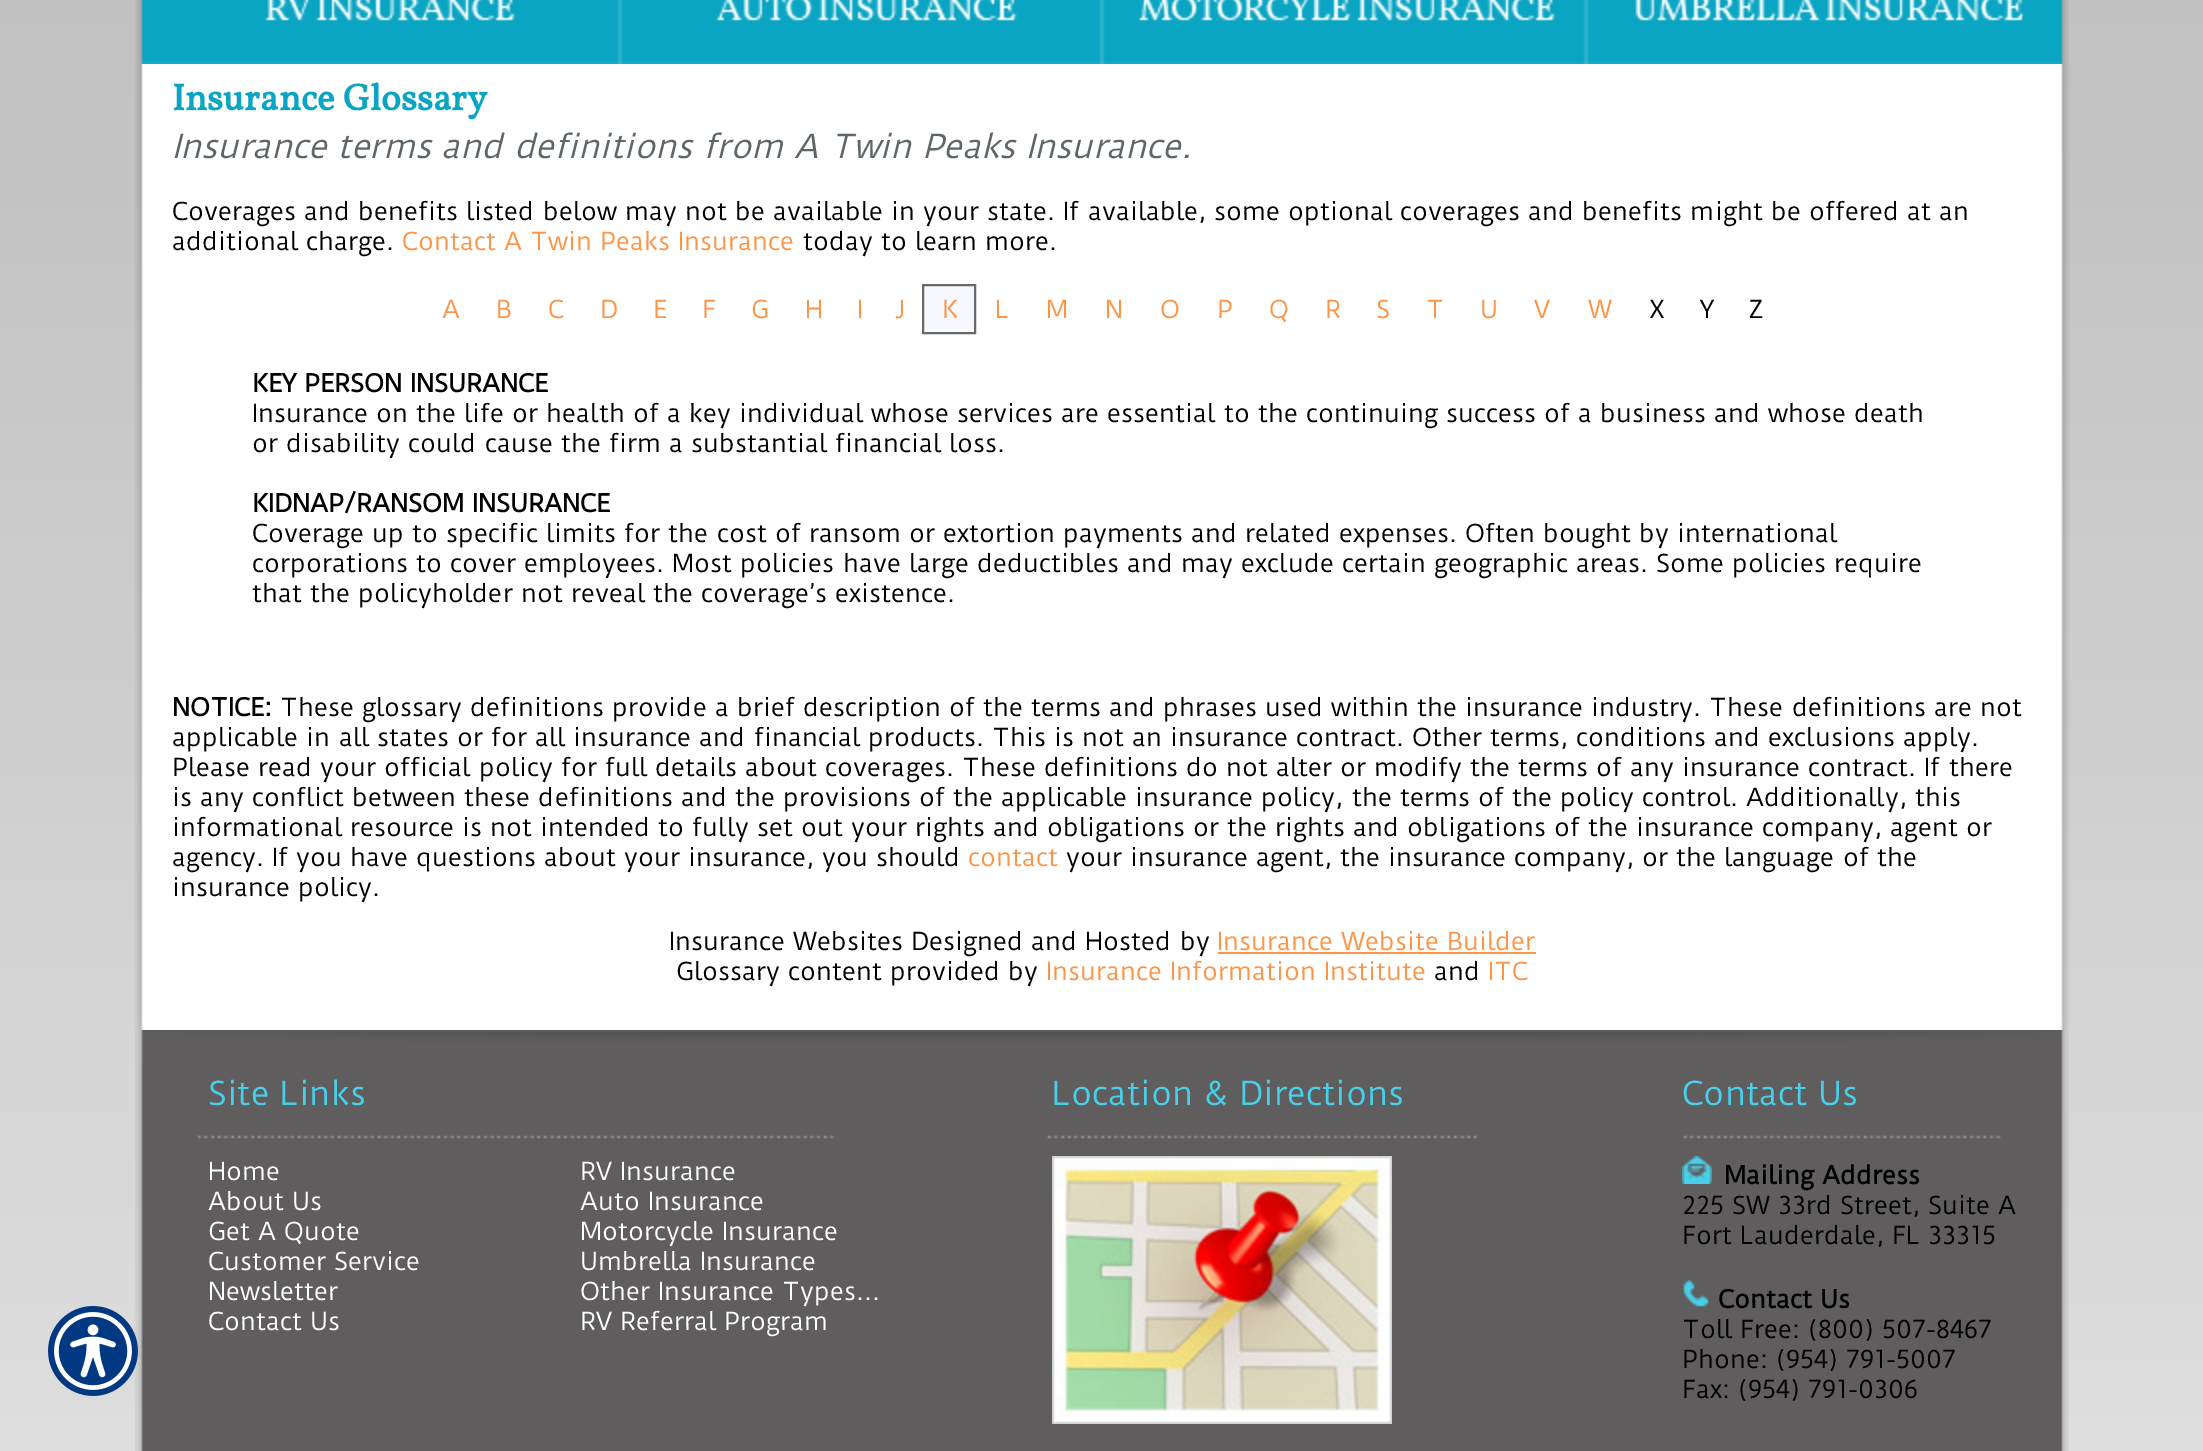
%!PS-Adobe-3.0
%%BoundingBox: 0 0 2203 1451
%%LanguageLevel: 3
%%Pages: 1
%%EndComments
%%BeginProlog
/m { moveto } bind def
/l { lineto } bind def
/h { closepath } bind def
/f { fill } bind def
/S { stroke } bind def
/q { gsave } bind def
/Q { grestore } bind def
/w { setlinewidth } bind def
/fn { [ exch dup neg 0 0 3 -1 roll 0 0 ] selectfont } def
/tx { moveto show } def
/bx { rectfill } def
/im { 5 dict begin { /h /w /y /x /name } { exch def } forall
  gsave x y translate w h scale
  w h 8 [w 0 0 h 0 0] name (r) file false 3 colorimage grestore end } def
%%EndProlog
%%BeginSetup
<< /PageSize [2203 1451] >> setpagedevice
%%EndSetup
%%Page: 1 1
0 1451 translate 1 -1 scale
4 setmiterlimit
1 setgray
0 0 2203 1451 bx
(image0.raw) 0 0 2203 1451 im
(image4.raw) 135 1030 1934 421 im
(image1.raw) 48 1306 90 90 im
(image2.raw) 135 0 1934 64 im
(image3.raw) 134 64 1936 966 im
/Vollkorn-Bold 37.25 fn
0.039 0.647 0.765 setrgbcolor
(Insurance Glossary) 172 110 tx
/DuruSans-Italic 32 fn
0.373 0.4 0.404 setrgbcolor
(Insurance terms and definitions from A Twin Peaks Insurance.) 172 158 tx
/DuruSans-Regular 24 fn
0 setgray
(Coverages and benefits listed below may not be available in your state. If available, some optional coverages and benefits might be offered at an) 172 220 tx
(additional charge.) 172 250 tx
0.992 0.58 0.275 setrgbcolor
(Contact A Twin Peaks Insurance) 402 250 tx
0 setgray
(today to learn more.) 803 250 tx
0.992 0.58 0.275 setrgbcolor
(A) 442 318 tx
(B) 496 318 tx
(C) 548 318 tx
(D) 600 318 tx
(E) 653 318 tx
(F) 702 318 tx
(G) 751 318 tx
(H) 805 318 tx
(I) 857 318 tx
(J) 895 318 tx
0.973 0.973 1 setrgbcolor
923 285 m 975 285 l 975 333 l 923 333 l h q f Q
0.412 setgray
2 w
S
0.992 0.58 0.275 setrgbcolor
(K) 942 318 tx
(L) 995 318 tx
(M) 1046 318 tx
(N) 1105 318 tx
(O) 1160 318 tx
(P) 1217 318 tx
(Q) 1269 318 tx
(R) 1325 318 tx
(S) 1376 318 tx
(T) 1426 318 tx
(U) 1480 318 tx
(V) 1534 318 tx
(W) 1588 318 tx
0 setgray
(X) 1649 318 tx
(Y) 1700 318 tx
(Z) 1749 318 tx
/DuruSans-Bold 24 fn
(KEY PERSON INSURANCE) 252 392 tx
/DuruSans-Regular 24 fn
(Insurance on the life or health of a key individual whose services are essential to the continuing success of a business and whose death) 252 422 tx
(or disability could cause the firm a substantial financial loss.) 252 452 tx
/DuruSans-Bold 24 fn
(KIDNAP/RANSOM INSURANCE) 252 512 tx
/DuruSans-Regular 24 fn
(Coverage up to specific limits for the cost of ransom or extortion payments and related expenses. Often bought by international) 252 542 tx
(corporations to cover employees. Most policies have large deductibles and may exclude certain geographic areas. Some policies require) 252 572 tx
(that the policyholder not reveal the coverage’s existence.) 252 602 tx
/DuruSans-Bold 24 fn
(NOTICE:) 172 716 tx
/DuruSans-Regular 24 fn
(These glossary definitions provide a brief description of the terms and phrases used within the insurance industry. These definitions are not) 280 716 tx
(applicable in all states or for all insurance and financial products. This is not an insurance contract. Other terms, conditions and exclusions apply.) 172 746 tx
(Please read your official policy for full details about coverages. These definitions do not alter or modify the terms of any insurance contract. If there) 172 776 tx
(is any conflict between these definitions and the provisions of the applicable insurance policy, the terms of the policy control. Additionally, this) 172 806 tx
(informational resource is not intended to fully set out your rights and obligations or the rights and obligations of the insurance company, agent or) 172 836 tx
(agency. If you have questions about your insurance, you should) 172 866 tx
0.992 0.58 0.275 setrgbcolor
(contact) 968 866 tx
0 setgray
(your insurance agent, the insurance company, or the language of the) 1066 866 tx
(insurance policy.) 172 896 tx
(Insurance Websites Designed and Hosted by) 669 950 tx
0.992 0.58 0.275 setrgbcolor
(Insurance Website Builder) 1217 950 tx
1218 952 318 2 bx
0 setgray
(Glossary content provided by) 676 980 tx
0.992 0.58 0.275 setrgbcolor
(Insurance Information Institute) 1046 980 tx
0 setgray
(and) 1434 980 tx
0.992 0.58 0.275 setrgbcolor
(ITC) 1488 980 tx
/DuruSans-Regular 32 fn
0.282 0.816 0.918 setrgbcolor
(Site Links) 208 1105 tx
(Location & Directions) 1052 1105 tx
(Contact Us) 1682 1105 tx
/DuruSans-Regular 24 fn
1 setgray
(Home) 208 1180 tx
(About Us) 208 1210 tx
(Get A Quote) 208 1240 tx
(Customer Service) 208 1270 tx
(Newsletter) 208 1300 tx
(Contact Us) 208 1330 tx
(RV Insurance) 580 1180 tx
(Auto Insurance) 580 1210 tx
(Motorcycle Insurance) 580 1240 tx
(Umbrella Insurance) 580 1270 tx
(Other Insurance Types...) 580 1300 tx
(RV Referral Program) 580 1330 tx
(image5.raw) 1052 1156 340 268 im
(image6.raw) 1682 1156 30 28 im
/DuruSans-Bold 24 fn
0 setgray
(Mailing Address) 1724 1184 tx
/DuruSans-Regular 24 fn
(225 SW 33rd Street, Suite A) 1682 1214 tx
(Fort Lauderdale, FL 33315) 1682 1244 tx
(image7.raw) 1683 1280 26 27 im
/DuruSans-Bold 24 fn
(Contact Us) 1718 1308 tx
/DuruSans-Regular 24 fn
(Toll Free: \(800\) 507-8467) 1682 1338 tx
(Phone: \(954\) 791-5007) 1682 1368 tx
(Fax: \(954\) 791-0306) 1682 1398 tx
showpage
%%EOF
